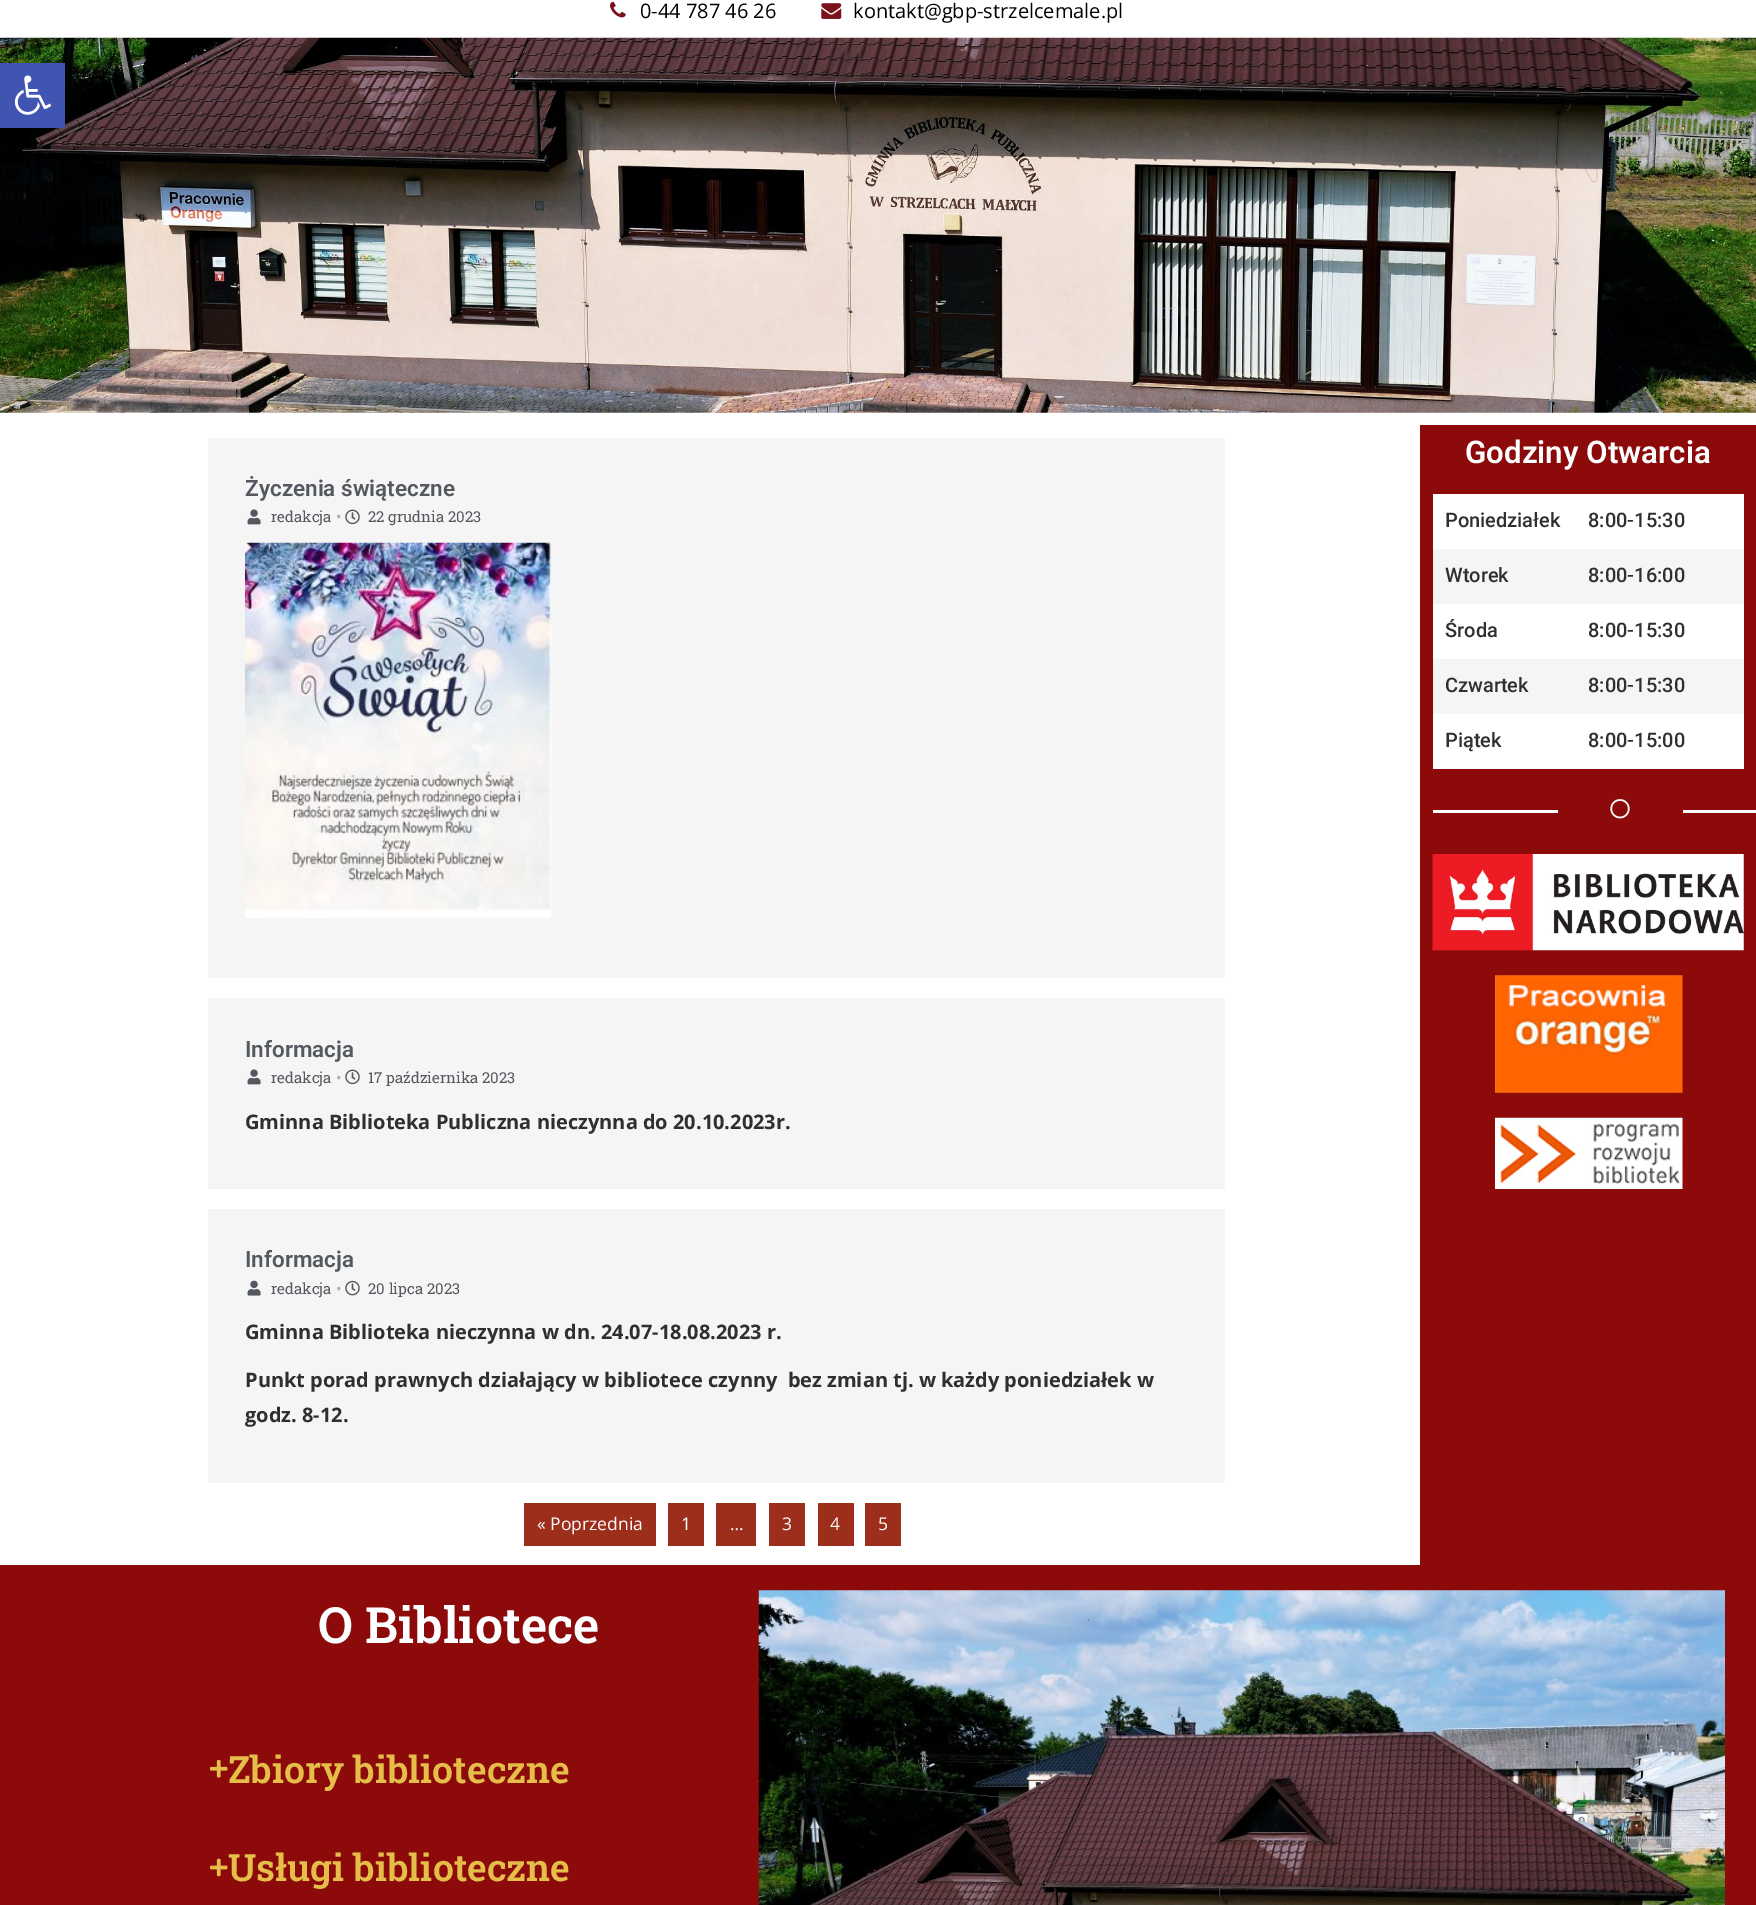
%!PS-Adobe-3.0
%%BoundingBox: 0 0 1756 1905
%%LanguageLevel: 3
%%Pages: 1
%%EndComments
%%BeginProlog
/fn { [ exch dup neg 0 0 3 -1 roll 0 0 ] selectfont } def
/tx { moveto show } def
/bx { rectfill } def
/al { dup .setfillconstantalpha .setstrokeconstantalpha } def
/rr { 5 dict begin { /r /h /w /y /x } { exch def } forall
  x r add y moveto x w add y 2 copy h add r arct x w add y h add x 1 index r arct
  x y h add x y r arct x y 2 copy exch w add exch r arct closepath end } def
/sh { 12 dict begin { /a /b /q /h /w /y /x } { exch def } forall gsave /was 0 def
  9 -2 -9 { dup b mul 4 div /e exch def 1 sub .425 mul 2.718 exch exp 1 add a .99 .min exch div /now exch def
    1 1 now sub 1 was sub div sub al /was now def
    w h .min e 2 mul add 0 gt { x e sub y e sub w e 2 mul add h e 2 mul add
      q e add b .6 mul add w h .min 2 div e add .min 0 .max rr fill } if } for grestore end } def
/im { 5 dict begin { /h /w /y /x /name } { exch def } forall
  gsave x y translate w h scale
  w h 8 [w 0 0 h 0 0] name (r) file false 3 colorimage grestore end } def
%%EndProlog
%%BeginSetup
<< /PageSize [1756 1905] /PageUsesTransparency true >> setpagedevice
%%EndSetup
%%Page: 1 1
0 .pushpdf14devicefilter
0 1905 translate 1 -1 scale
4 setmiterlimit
1 setgray
0 0 1756 1905 bx
(image3.raw) 0 37 1756 376 im
0 setgray
0 63 65 65 0 6 0.1 sh
0.251 0.329 0.698 setrgbcolor
0 63 65 65 bx
(image0.raw) 14 75 38 40 im
(image1.raw) 610 1 16 17 im
/OpenSans-Regular 20 fn
0 setgray
(0-44 787 46 26) 640 18 tx
(image2.raw) 821 3 21 16 im
(kontakt@gbp-strzelcemale.pl) 853 18 tx
0.961 setgray
208 438 1017 540 bx
/Roboto-SemiBold 22.5 fn
0.329 0.349 0.373 setrgbcolor
(Życzenia świąteczne) 245 496 tx
(image4.raw) 247 509 14 16 im
/RobotoSlab-Regular 15 fn
(redakcja) 271 522 tx
/OpenSans-Regular 15 fn
0.678 setgray
(•) 336 522 tx
(image5.raw) 345 509 15 16 im
/RobotoSlab-Regular 15 fn
0.329 0.349 0.373 setrgbcolor
(22 grudnia 2023) 368 522 tx
(image6.raw) 245 542 307 376 im
0.961 setgray
208 998 1017 191 bx
/Roboto-SemiBold 22.5 fn
0.329 0.349 0.373 setrgbcolor
(Informacja) 245 1057 tx
(image4.raw) 247 1069 14 16 im
/RobotoSlab-Regular 15 fn
(redakcja) 271 1083 tx
/OpenSans-Regular 15 fn
0.678 setgray
(•) 336 1083 tx
(image5.raw) 345 1069 15 16 im
/RobotoSlab-Regular 15 fn
0.329 0.349 0.373 setrgbcolor
(17 października 2023) 368 1083 tx
/OpenSans-Bold 20 fn
0.184 setgray
(Gminna Biblioteka Publiczna nieczynna do 20.10.2023r.) 245 1129 tx
0.961 setgray
208 1209 1017 274 bx
/Roboto-SemiBold 22.5 fn
0.329 0.349 0.373 setrgbcolor
(Informacja) 245 1267 tx
(image7.raw) 247 1280 14 16 im
/RobotoSlab-Regular 15 fn
(redakcja) 271 1294 tx
/OpenSans-Regular 15 fn
0.678 setgray
(•) 336 1294 tx
(image8.raw) 345 1280 15 16 im
/RobotoSlab-Regular 15 fn
0.329 0.349 0.373 setrgbcolor
(20 lipca 2023) 368 1294 tx
/OpenSans-Bold 20 fn
0.184 setgray
(Gminna Biblioteka nieczynna w dn. 24.07-18.08.2023 r.) 245 1339 tx
(Punkt porad prawnych działający w bibliotece czynny  bez zmian tj. w każdy poniedziałek w) 245 1387 tx
(godz. 8-12.) 245 1422 tx
0.616 0.18 0.106 setrgbcolor
524 1503 132 43 bx
/OpenSans-Regular 17.5 fn
0.992 0.996 1 setrgbcolor
(« Poprzednia) 537 1530 tx
0.616 0.18 0.106 setrgbcolor
668 1503 36 43 bx
0.992 0.996 1 setrgbcolor
(1) 681 1530 tx
0.616 0.18 0.106 setrgbcolor
716 1503 40 43 bx
0.992 0.996 1 setrgbcolor
(…) 730 1530 tx
0.616 0.18 0.106 setrgbcolor
769 1503 36 43 bx
0.992 0.996 1 setrgbcolor
(3) 782 1530 tx
0.616 0.18 0.106 setrgbcolor
818 1503 36 43 bx
0.992 0.996 1 setrgbcolor
(4) 830 1530 tx
0.616 0.18 0.106 setrgbcolor
865 1503 36 43 bx
0.992 0.996 1 setrgbcolor
(5) 878 1530 tx
0.553 0.039 0.039 setrgbcolor
1420 425 336 1140 bx
/Roboto-SemiBold 31.25 fn
0.992 0.996 1 setrgbcolor
(Godziny Otwarcia) 1465 463 tx
1 setgray
1433 494 311 55 bx
/Roboto-Medium 20 fn
0.184 setgray
(Poniedziałek) 1445 527 tx
(8:00-15:30) 1588 527 tx
0.961 setgray
1433 549 311 55 bx
0.184 setgray
(Wtorek) 1445 582 tx
(8:00-16:00) 1588 582 tx
1 setgray
1433 604 311 55 bx
0.184 setgray
(Środa) 1445 637 tx
(8:00-15:30) 1588 637 tx
0.961 setgray
1433 659 311 55 bx
0.184 setgray
(Czwartek) 1445 692 tx
(8:00-15:30) 1588 692 tx
1 setgray
1433 714 311 55 bx
0.184 setgray
(Piątek) 1445 747 tx
(8:00-15:00) 1588 747 tx
0.992 setgray
1433 810 125 3 bx
(image9.raw) 1610 799 20 20 im
0.969 setgray
1683 810 73 3 bx
(image10.raw) 1432 854 312 97 im
(image11.raw) 1495 975 188 118 im
(image12.raw) 1495 1117 188 72 im
0.553 0.039 0.039 setrgbcolor
0 1565 1756 340 bx
/RobotoSlab-SemiBold 50 fn
0.992 0.996 1 setrgbcolor
(O Bibliotece) 318 1643 tx
(image13.raw) 210 1760 18 18 im
/RobotoSlab-SemiBold 37.5 fn
0.898 0.741 0.286 setrgbcolor
(Zbiory biblioteczne) 228 1783 tx
(image14.raw) 210 1858 18 19 im
(Usługi biblioteczne) 228 1881 tx
(image15.raw) 758 1590 967 315 im
.poppdf14devicefilter showpage
%%EOF
